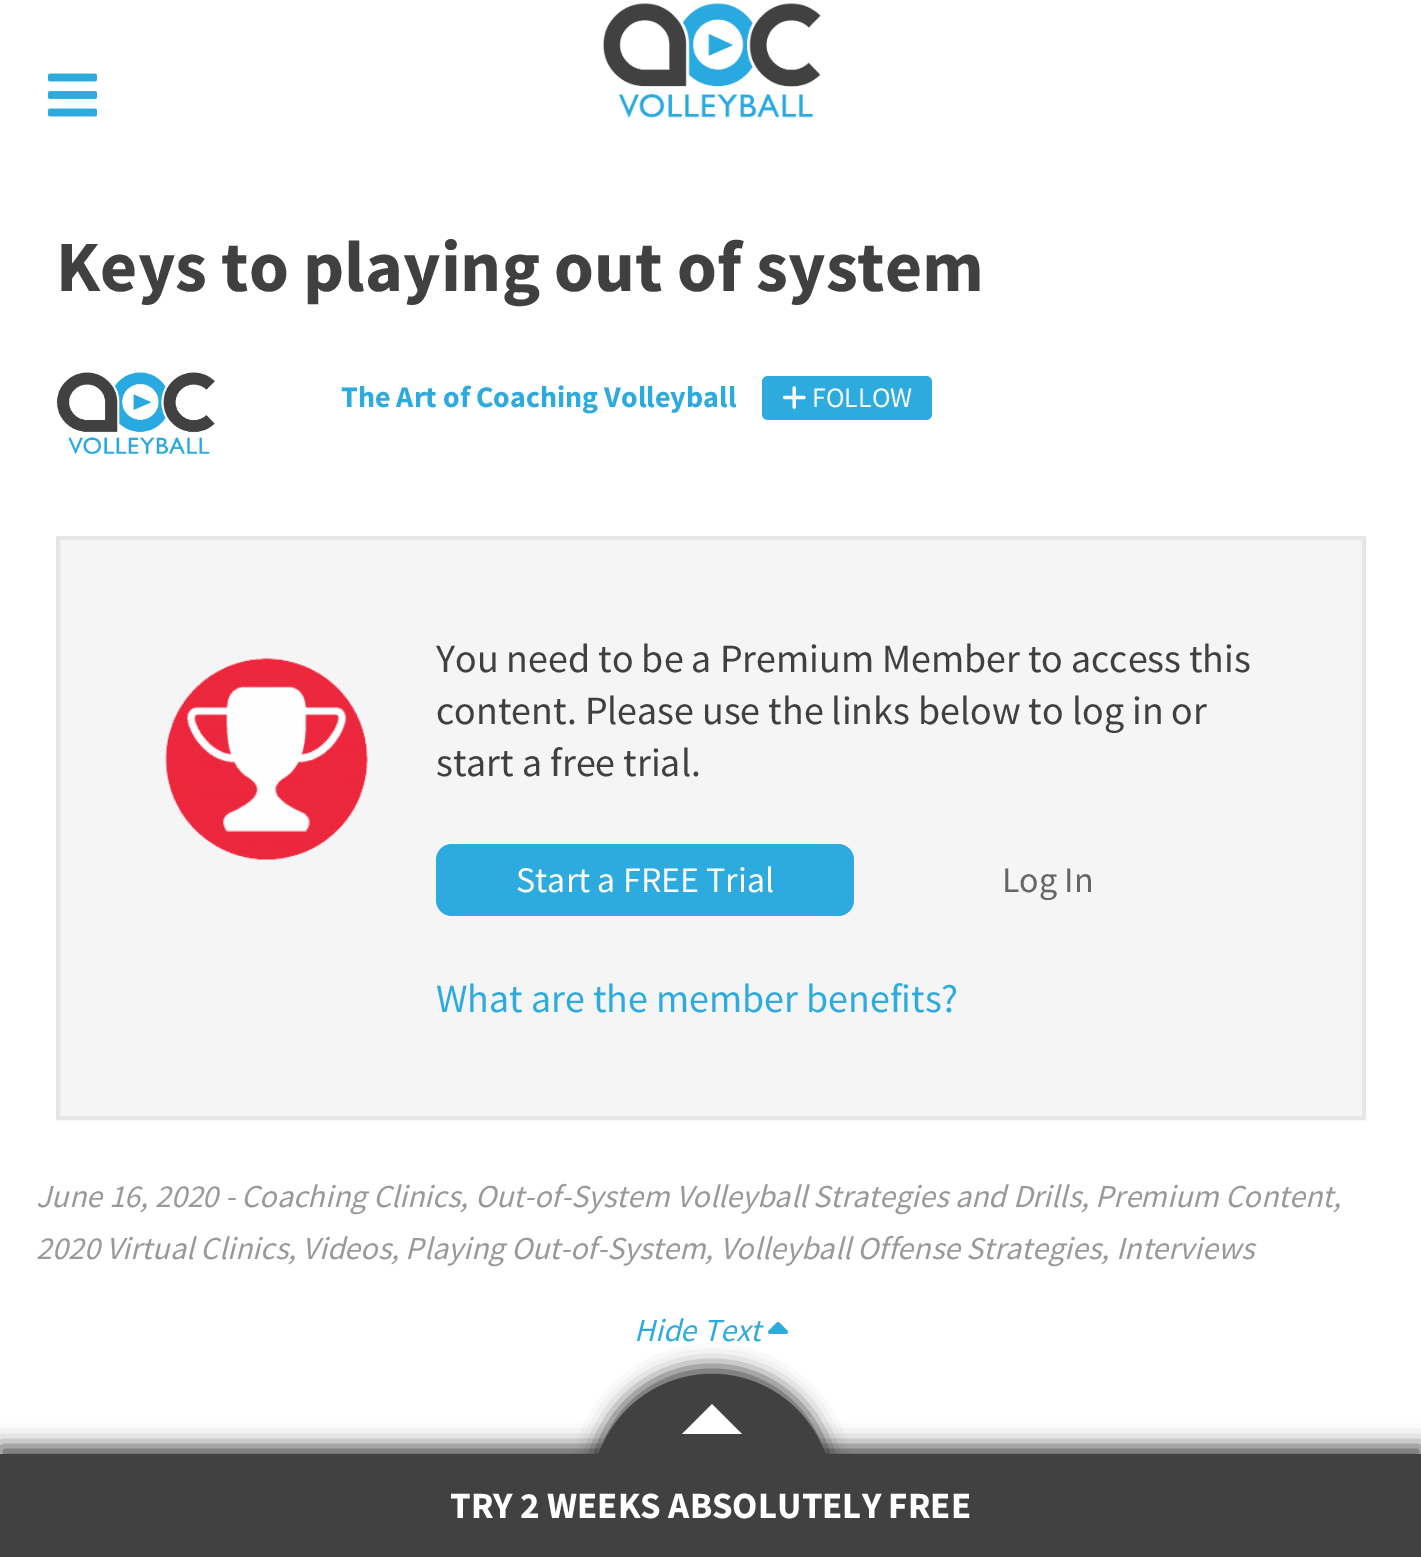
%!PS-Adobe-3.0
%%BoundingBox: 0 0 1421 1557
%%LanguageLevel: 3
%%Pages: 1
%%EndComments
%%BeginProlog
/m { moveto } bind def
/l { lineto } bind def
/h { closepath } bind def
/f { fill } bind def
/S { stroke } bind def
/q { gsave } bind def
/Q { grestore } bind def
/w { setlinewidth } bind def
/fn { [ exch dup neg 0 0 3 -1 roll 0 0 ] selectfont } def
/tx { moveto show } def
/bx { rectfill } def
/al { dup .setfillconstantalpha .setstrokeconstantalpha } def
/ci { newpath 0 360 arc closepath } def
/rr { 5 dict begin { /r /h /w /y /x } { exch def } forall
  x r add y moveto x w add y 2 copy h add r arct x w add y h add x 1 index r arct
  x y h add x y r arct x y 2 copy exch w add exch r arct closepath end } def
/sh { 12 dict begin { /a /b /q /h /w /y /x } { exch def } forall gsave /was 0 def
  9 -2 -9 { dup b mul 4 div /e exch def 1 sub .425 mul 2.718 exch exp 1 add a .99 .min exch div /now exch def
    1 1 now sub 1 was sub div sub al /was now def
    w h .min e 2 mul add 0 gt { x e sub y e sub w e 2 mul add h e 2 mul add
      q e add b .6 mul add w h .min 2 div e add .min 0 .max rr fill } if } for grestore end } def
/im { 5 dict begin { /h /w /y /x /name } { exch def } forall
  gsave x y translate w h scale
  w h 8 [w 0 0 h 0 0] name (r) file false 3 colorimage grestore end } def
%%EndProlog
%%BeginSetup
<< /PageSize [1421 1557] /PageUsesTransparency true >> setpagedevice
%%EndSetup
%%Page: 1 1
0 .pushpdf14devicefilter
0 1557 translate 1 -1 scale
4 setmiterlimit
1 setgray
0 0 1421 1557 bx
(image0.raw) 48 73 49 44 im
(image1.raw) 603 3 218 115 im
/SourceSansPro-Bold 72 fn
0.251 0.251 0.255 setrgbcolor
(Keys to playing out of system) 56 291 tx
(image2.raw) 56 372 159 82 im
/SourceSansPro-Bold 30 fn
0.176 0.671 0.871 setrgbcolor
(The Art of Coaching Volleyball) 341 407 tx
762 376 170 44 6 rr f
(image3.raw) 782 386 24 23 im
/SourceSansPro-Regular 28 fn
1 setgray
(FOLLOW) 812 407 tx
0.961 setgray
58 538 m 1364 538 l 1364 1118 l 58 1118 l h q f Q
0.902 setgray
4 w
S
(image4.raw) 165 658 203 202 im
/SourceSansPro-Regular 40 fn
0.251 0.251 0.255 setrgbcolor
(You need to be a Premium Member to access this) 436 672 tx
(content. Please use the links below to log in or) 436 724 tx
(start a free trial.) 436 776 tx
0.176 0.671 0.871 setrgbcolor
436 844 418 72 16 rr f
/SourceSansPro-Regular 36 fn
1 setgray
(Start a FREE Trial) 516 892 tx
0.4 setgray
(Log In) 1002 892 tx
/SourceSansPro-Regular 40 fn
0.176 0.671 0.871 setrgbcolor
(What are the member benefits?) 436 1012 tx
/SourceSansPro-Italic 32 fn
0.6 setgray
(June 16, 2020 - Coaching Clinics, Out-of-System Volleyball Strategies and Drills, Premium Content,) 36 1207 tx
(2020 Virtual Clinics, Videos, Playing Out-of-System, Volleyball Offense Strategies, Interviews) 36 1259 tx
0.176 0.671 0.871 setrgbcolor
(Hide Text) 634 1341 tx
(image5.raw) 768 1322 20 12 im
0 setgray
0 1446 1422 104 0 10 0.7 sh
592 1366 240 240 120 10 0.7 sh
0.255 setgray
712 1494 120 ci f
0 1454 1421 103 bx
1 setgray
742 1434 m 682 1434 l 712 1404 l h f
/SourceSansPro-Bold 37 fn
(TRY 2 WEEKS ABSOLUTELY FREE) 450 1518 tx
.poppdf14devicefilter showpage
%%EOF
